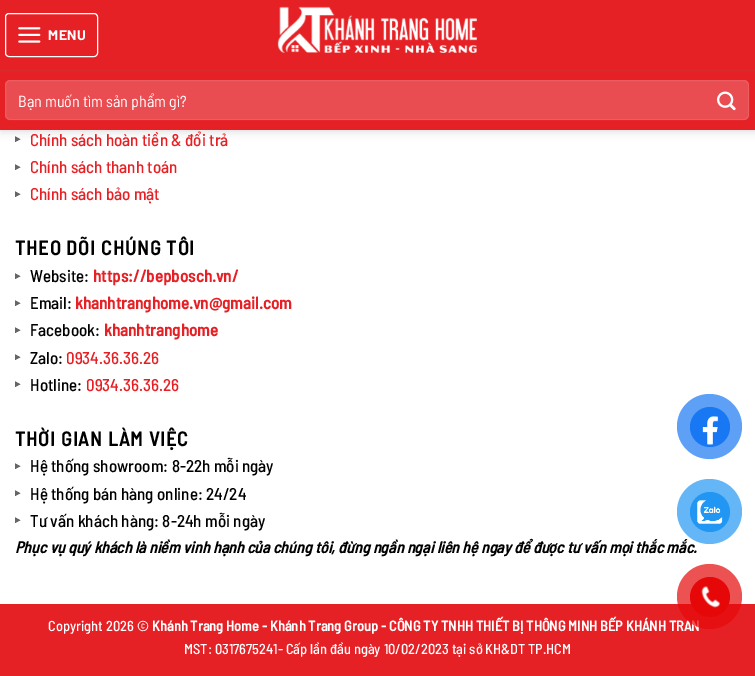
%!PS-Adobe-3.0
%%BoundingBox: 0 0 755 676
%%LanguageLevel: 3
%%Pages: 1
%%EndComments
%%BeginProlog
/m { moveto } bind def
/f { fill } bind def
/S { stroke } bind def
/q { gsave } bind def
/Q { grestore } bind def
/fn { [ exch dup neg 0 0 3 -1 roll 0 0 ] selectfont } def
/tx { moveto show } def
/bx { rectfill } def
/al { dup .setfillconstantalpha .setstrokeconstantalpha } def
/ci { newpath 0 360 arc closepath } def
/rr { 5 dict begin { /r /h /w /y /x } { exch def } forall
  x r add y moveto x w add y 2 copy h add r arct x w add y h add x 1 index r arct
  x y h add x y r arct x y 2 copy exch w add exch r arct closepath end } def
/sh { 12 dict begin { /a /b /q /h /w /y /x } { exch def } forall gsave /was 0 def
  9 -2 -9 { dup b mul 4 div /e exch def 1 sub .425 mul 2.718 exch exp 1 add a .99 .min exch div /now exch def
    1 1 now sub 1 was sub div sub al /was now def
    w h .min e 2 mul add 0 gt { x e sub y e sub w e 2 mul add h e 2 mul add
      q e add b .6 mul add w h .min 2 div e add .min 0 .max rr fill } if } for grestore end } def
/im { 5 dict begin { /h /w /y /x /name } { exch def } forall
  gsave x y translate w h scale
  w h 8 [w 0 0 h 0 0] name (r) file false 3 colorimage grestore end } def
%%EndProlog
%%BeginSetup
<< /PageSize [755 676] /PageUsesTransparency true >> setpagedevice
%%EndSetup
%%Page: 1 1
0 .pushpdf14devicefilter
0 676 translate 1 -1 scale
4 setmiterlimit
0.898 0.129 0.149 setrgbcolor
0 0 755 676 bx
1 setgray
0 130 755 474 bx
(image3.raw) 15 136 6 6 im
0 setgray
1 1 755 130 0 5 0.15 sh
0.898 0.129 0.149 setrgbcolor
0 0 755 70 bx
1 setgray
5.5 13.5 92 43 3.5 rr S
(image0.raw) 18 27 23 16 im
/Barlow-Bold 14 fn
48 40 m 0.5 0 (MENU) ashow
(image1.raw) 277 6 200 47 im
0.855 0.165 0.18 setrgbcolor
0 70 755 1 bx
0.898 0.129 0.149 setrgbcolor
0 71 755 59 bx
0.918 0.302 0.318 setrgbcolor
5 80 744 40 5 rr f
0.09 al
1 setgray
5.5 80.5 743 39 4.5 rr S
q
18 91 714 19 rectclip
/BarlowSemiCondensed-Regular 16 fn
1 al
(Bạn muốn tìm sản phẩm gì?) 18 107 tx
Q
1 al
(image2.raw) 717 91 19 20 im
/BarlowSemiCondensed-Medium 17 fn
0.898 0.129 0.149 setrgbcolor
(Chính sách hoàn tiền & đổi trả) 30 146 tx
(image3.raw) 15 164 6 6 im
(Chính sách thanh toán) 30 173 tx
(image3.raw) 15 191 6 6 im
(Chính sách bảo mật) 30 200 tx
/BarlowSemiCondensed-Bold 20 fn
0 setgray
15 255 m 1 0 (THEO DÕI CHÚNG TÔI) ashow
(image3.raw) 15 273 6 6 im
/BarlowSemiCondensed-Medium 17 fn
(Website:) 30 282 tx
/BarlowSemiCondensed-Bold 17 fn
0.898 0.129 0.149 setrgbcolor
(https://bepbosch.vn/) 93 282 tx
(image3.raw) 15 300 6 6 im
/BarlowSemiCondensed-Medium 17 fn
0 setgray
(Email:) 30 309 tx
/BarlowSemiCondensed-Bold 17 fn
0.898 0.129 0.149 setrgbcolor
(khanhtranghome.vn@gmail.com) 75 309 tx
(image3.raw) 15 327 6 6 im
/BarlowSemiCondensed-Medium 17 fn
0 setgray
(Facebook:) 30 336 tx
/BarlowSemiCondensed-Bold 17 fn
0.898 0.129 0.149 setrgbcolor
(khanhtranghome) 104 336 tx
(image3.raw) 15 354 6 6 im
/BarlowSemiCondensed-Medium 17 fn
0 setgray
(Zalo:) 30 364 tx
0.898 0.129 0.149 setrgbcolor
(0934.36.36.26) 66 364 tx
(image3.raw) 15 381 6 6 im
0 setgray
(Hotline:) 30 391 tx
0.898 0.129 0.149 setrgbcolor
(0934.36.36.26) 86 391 tx
/BarlowSemiCondensed-Bold 20 fn
0 setgray
15 446 m 1 0 (THỜI GIAN LÀM VIỆC) ashow
(image3.raw) 15 463 6 6 im
/BarlowSemiCondensed-Medium 17 fn
(Hệ thống showroom: 8-22h mỗi ngày) 30 472 tx
(image3.raw) 15 490 6 6 im
(Hệ thống bán hàng online: 24/24) 30 500 tx
(image3.raw) 15 517 6 6 im
(Tư vấn khách hàng: 8-24h mỗi ngày) 30 527 tx
/BarlowSemiCondensed-BoldItalic 16 fn
(Phục vụ quý khách là niềm vinh hạnh của chúng tôi, đừng ngần ngại liên hệ ngay để được tư vấn mọi thắc mắc.) 15 553 tx
/BarlowSemiCondensed-Medium 14.4 fn
1 setgray
(Copyright 2026 ©) 48 631 tx
/BarlowSemiCondensed-Bold 14.4 fn
(Khánh Trang Home - Khánh Trang Group - CÔNG TY TNHH THIẾT BỊ THÔNG MINH BẾP KHÁNH TRAN) 152 631 tx
/BarlowSemiCondensed-Medium 14.4 fn
(MST: 0317675241- Cấp lần đầu ngày 10/02/2023 tại sở KH&DT TP.HCM) 184 654 tx
0.365 0.627 0.965 setrgbcolor
709.5 426.5 32.5 ci f
0.094 0.467 0.949 setrgbcolor
710 427 20 ci f
(image4.raw) 702 416 17 29 im
0.392 0.714 0.969 setrgbcolor
709.5 511.5 32.5 ci f
0.129 0.588 0.953 setrgbcolor
710 512 20 ci f
(image5.raw) 697 500 26 24 im
0.7 al
0.902 0.031 0.031 setrgbcolor
709.5 596.5 32.5 ci f
1 al
710 597 20 ci f
(image6.raw) 701 586 19 22 im
.poppdf14devicefilter showpage
%%EOF
